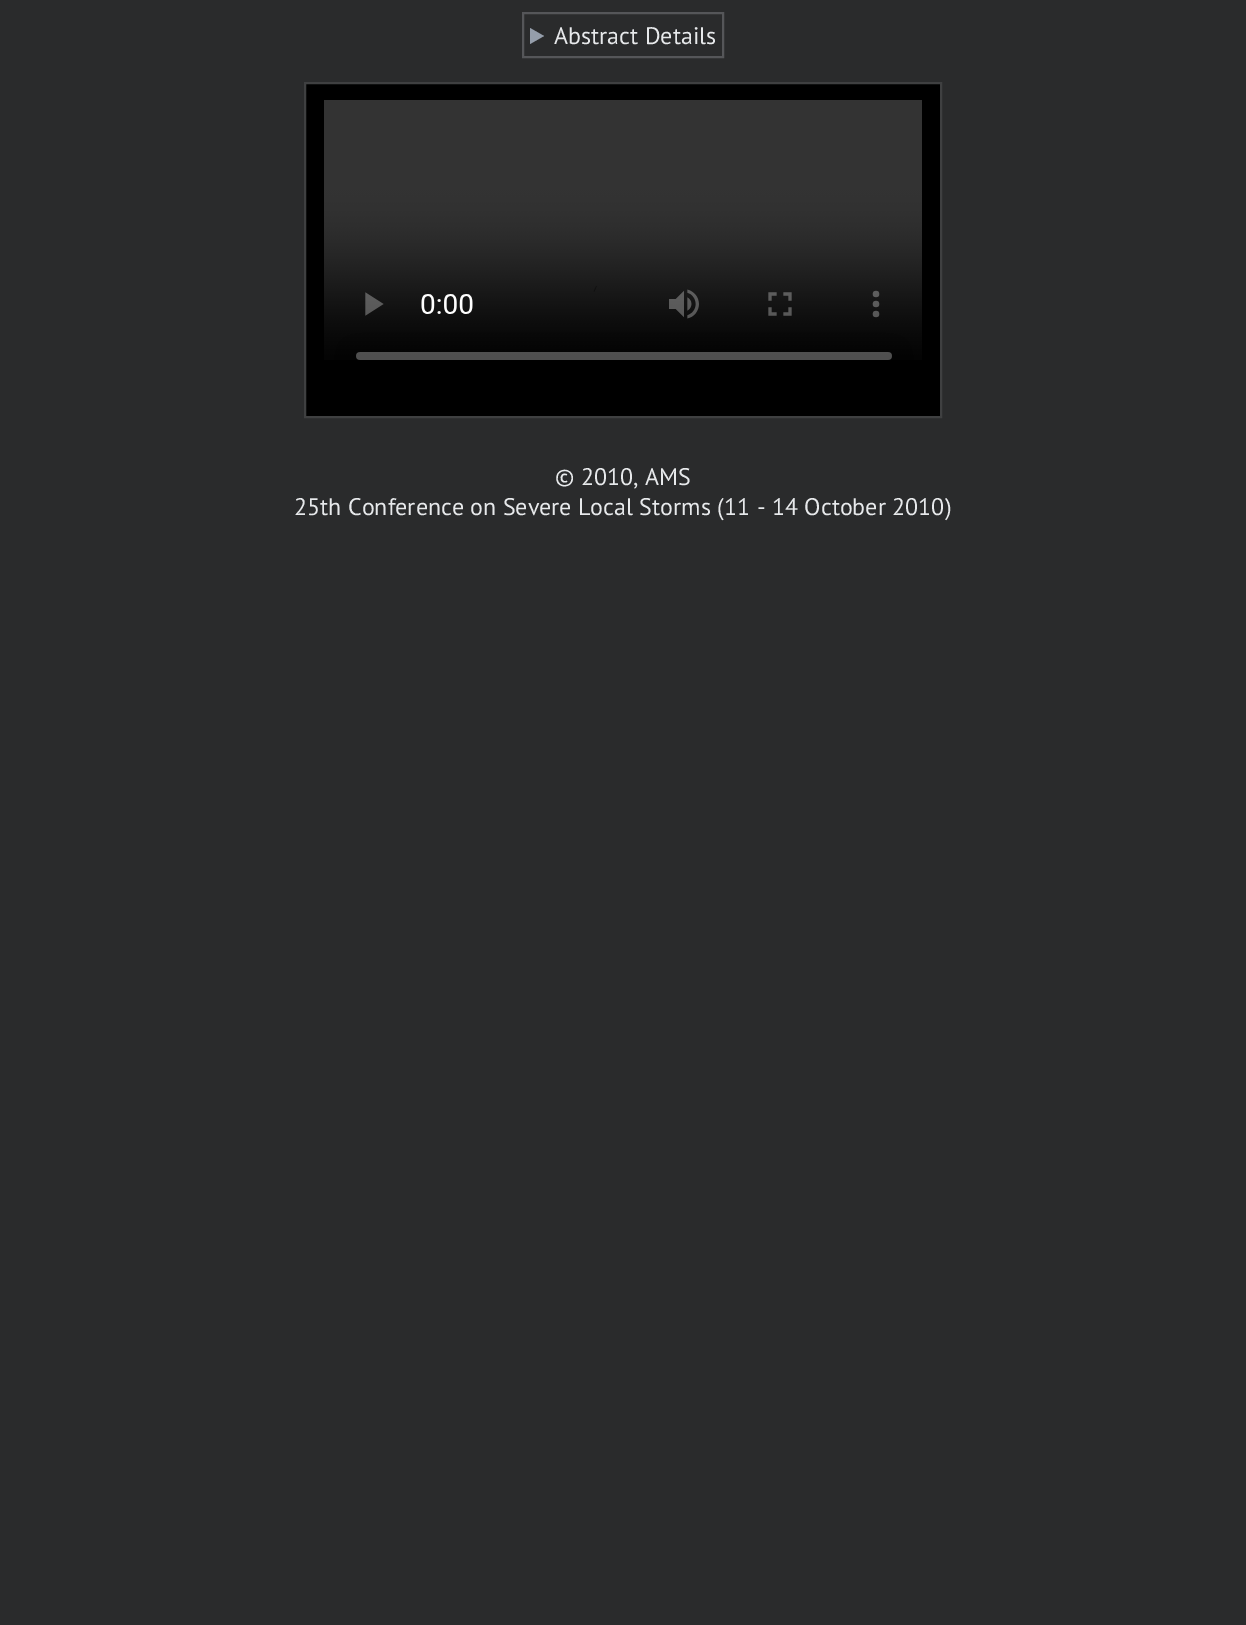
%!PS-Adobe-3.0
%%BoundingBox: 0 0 1246 1625
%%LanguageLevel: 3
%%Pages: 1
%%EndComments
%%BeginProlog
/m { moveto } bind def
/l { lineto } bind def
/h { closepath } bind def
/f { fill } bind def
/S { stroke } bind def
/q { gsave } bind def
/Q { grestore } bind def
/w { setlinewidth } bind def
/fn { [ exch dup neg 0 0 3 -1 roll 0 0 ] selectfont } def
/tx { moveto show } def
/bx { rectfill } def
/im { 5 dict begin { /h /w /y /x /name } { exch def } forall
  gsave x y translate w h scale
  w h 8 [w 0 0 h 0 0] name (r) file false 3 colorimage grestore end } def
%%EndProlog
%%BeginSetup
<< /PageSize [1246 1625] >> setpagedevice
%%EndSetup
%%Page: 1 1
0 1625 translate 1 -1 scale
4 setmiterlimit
0.165 0.169 0.173 setrgbcolor
0 0 1246 1625 bx
0.333 0.337 0.349 setrgbcolor
2 w
523 13 200 44 rectstroke
0.584 0.62 0.671 setrgbcolor
530 44 m 530 28 l 544 36 l h f
/PTSans-Regular 24 fn
0.906 0.914 0.922 setrgbcolor
(Abstract Details) 554 44 tx
0 setgray
305 83 m 941 83 l 941 417 l 305 417 l h q f Q
0.247 0.251 0.255 setrgbcolor
S
(image0.raw) 324 100 598 260 im
0.906 0.914 0.922 setrgbcolor
(© 2010, AMS) 555 485 tx
(25th Conference on Severe Local Storms \(11 - 14 October 2010\)) 294 515 tx
showpage
%%EOF
